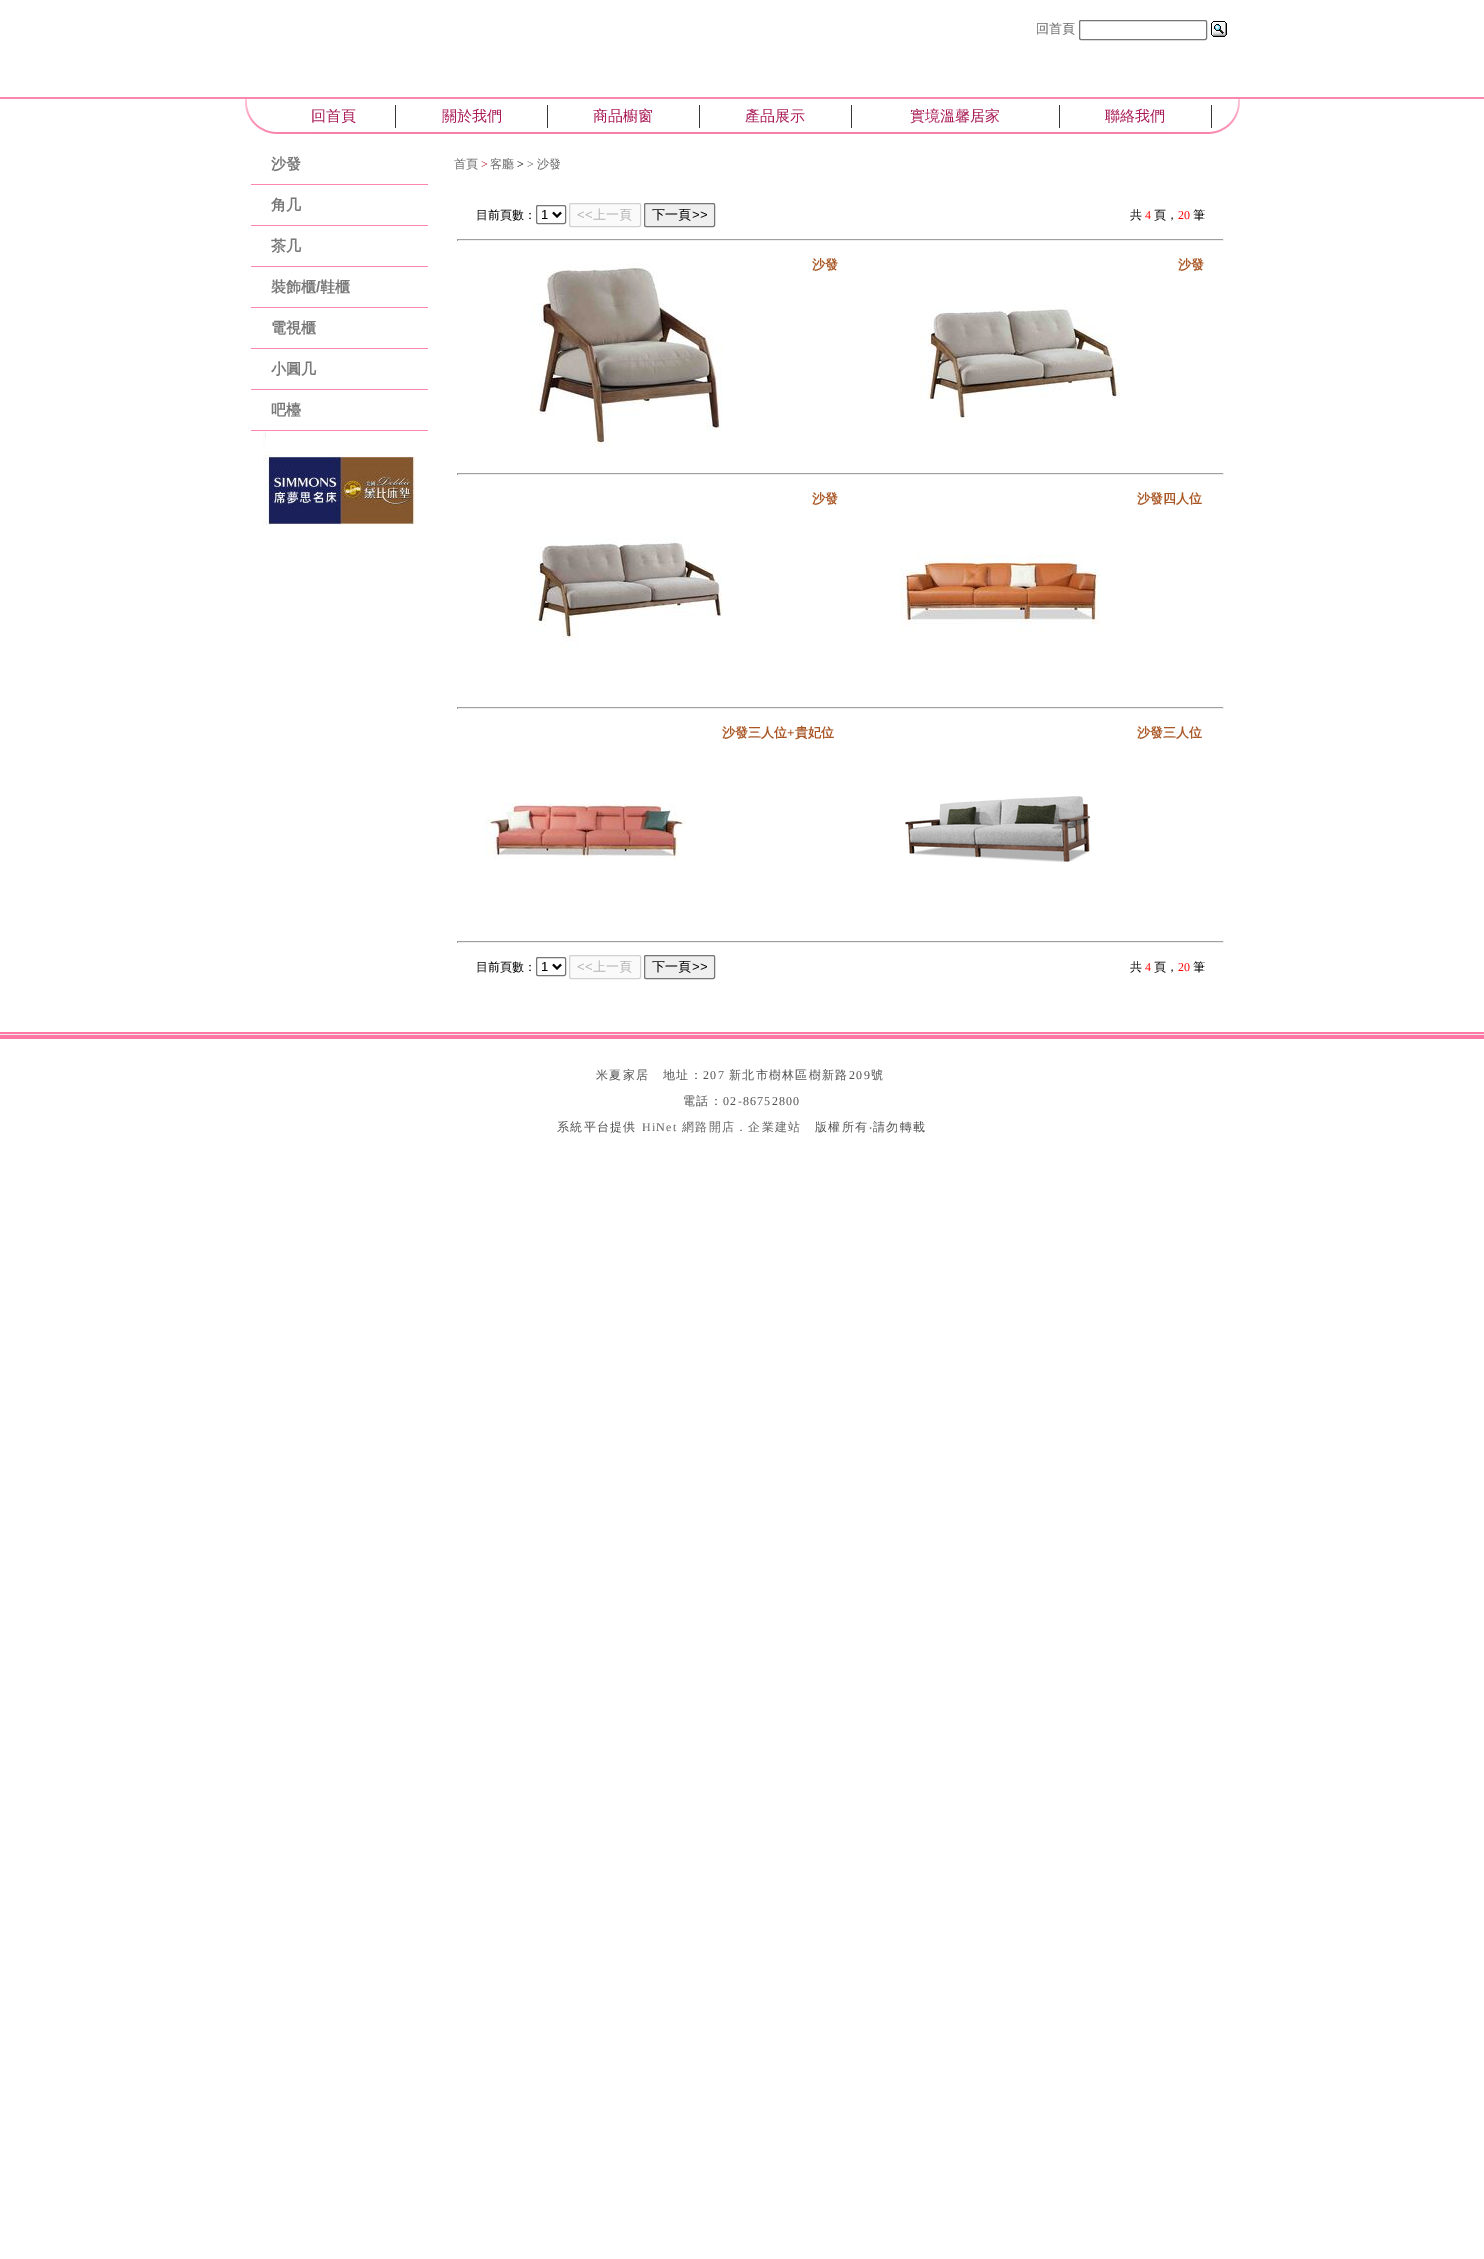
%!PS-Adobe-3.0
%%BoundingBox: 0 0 1484 2259
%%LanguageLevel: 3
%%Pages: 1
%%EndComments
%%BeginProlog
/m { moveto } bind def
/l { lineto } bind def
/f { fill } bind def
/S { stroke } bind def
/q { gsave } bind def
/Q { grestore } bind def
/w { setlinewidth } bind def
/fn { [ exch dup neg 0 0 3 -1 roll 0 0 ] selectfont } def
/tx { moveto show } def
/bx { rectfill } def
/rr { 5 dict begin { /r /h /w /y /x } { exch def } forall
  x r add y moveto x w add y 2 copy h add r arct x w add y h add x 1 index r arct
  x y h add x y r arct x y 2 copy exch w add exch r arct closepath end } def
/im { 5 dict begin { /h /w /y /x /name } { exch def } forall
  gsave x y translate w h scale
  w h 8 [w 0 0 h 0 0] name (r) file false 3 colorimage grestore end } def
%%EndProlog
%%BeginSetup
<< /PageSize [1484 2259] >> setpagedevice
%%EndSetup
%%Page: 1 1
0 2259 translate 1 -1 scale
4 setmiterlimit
1 setgray
0 0 1484 2259 bx
0.976 0.529 0.686 setrgbcolor
0 97 1484 2 bx
/WenQuanYiZenHei-Medium 13 fn
0.4 setgray
(回首頁) 1036 33 tx
0.463 setgray
1079.5 20.5 127 19 1.5 rr S
(image0.raw) 1211 21 16 16 im
(image1.raw) 245 99 995 35 im
0.216 setgray
395 105 1 23 bx
/WenQuanYiZenHei-Medium 15 fn
0.667 0.11 0.345 setrgbcolor
(回首頁) 311 121 tx
0.216 setgray
547 105 1 23 bx
0.667 0.11 0.345 setrgbcolor
(關於我們) 442 121 tx
0.216 setgray
699 105 1 23 bx
0.667 0.11 0.345 setrgbcolor
(商品櫥窗) 593 121 tx
0.216 setgray
851 105 1 23 bx
0.667 0.11 0.345 setrgbcolor
(產品展示) 745 121 tx
0.216 setgray
1059 105 1 23 bx
0.667 0.11 0.345 setrgbcolor
(實境溫馨居家) 910 121 tx
0.216 setgray
1211 105 1 23 bx
0.667 0.11 0.345 setrgbcolor
(聯絡我們) 1105 121 tx
0.98 0.529 0.682 setrgbcolor
251 184 177 1 bx
/WenQuanYiZenHei-Bold 15 fn
0.471 setgray
(沙發) 271 169 tx
0.98 0.529 0.682 setrgbcolor
251 225 177 1 bx
0.471 setgray
(角几) 271 210 tx
0.98 0.529 0.682 setrgbcolor
251 266 177 1 bx
0.471 setgray
(茶几) 271 251 tx
0.98 0.529 0.682 setrgbcolor
251 307 177 1 bx
0.471 setgray
(裝飾櫃) 271 292 tx
/LiberationSans-Bold 15 fn
(/) 316 292 tx
/WenQuanYiZenHei-Bold 15 fn
(鞋櫃) 320 292 tx
0.98 0.529 0.682 setrgbcolor
251 348 177 1 bx
0.471 setgray
(電視櫃) 271 333 tx
0.98 0.529 0.682 setrgbcolor
251 389 177 1 bx
0.471 setgray
(小圓几) 271 374 tx
0.98 0.529 0.682 setrgbcolor
251 430 177 1 bx
0.471 setgray
(吧檯) 271 415 tx
(image2.raw) 263 431 152 94 im
/WenQuanYiZenHei-Medium 12 fn
0.4 setgray
(首頁) 454 168 tx
/LiberationSerif-Regular 12 fn
0.714 0.129 0.196 setrgbcolor
(>) 481 168 tx
/WenQuanYiZenHei-Medium 12 fn
0.4 setgray
(客廳) 490 168 tx
/LiberationSerif-Regular 12 fn
0 setgray
(>) 517 168 tx
0.4 setgray
(>) 527 168 tx
/WenQuanYiZenHei-Medium 12 fn
(沙發) 537 168 tx
0 setgray
(目前頁數：) 476 219 tx
0.463 setgray
536.5 205.5 29 18 1.5 rr S
0 setgray
2 w
553 212.5 m 557 216.5 l 561 212.5 l S
/LiberationSans-Regular 13 fn
(1) 541 219 tx
0.98 setgray
569.5 203.5 71 23 1.5 rr q f Q
0.824 setgray
1 w
S
0.706 setgray
(<<) 577 219 tx
/WenQuanYiZenHei-Medium 13 fn
(上一頁) 593 219 tx
0.937 setgray
644.5 203.5 70 23 1.5 rr q f Q
0.463 setgray
S
0 setgray
(下一頁) 652 219 tx
/LiberationSans-Regular 13 fn
(>>) 692 219 tx
/WenQuanYiZenHei-Medium 12 fn
(共) 1130 219 tx
/LiberationSerif-Regular 12 fn
1 0 0 setrgbcolor
(4) 1145 219 tx
/WenQuanYiZenHei-Medium 12 fn
0 setgray
(頁，) 1154 219 tx
/LiberationSerif-Regular 12 fn
1 0 0 setrgbcolor
(20) 1178 219 tx
/WenQuanYiZenHei-Medium 12 fn
0 setgray
(筆) 1193 219 tx
0.624 setgray
457 239 767 1 bx
0.933 setgray
1223 239 1 2 bx
457 240 767 1 bx
0.624 setgray
457 239 1 2 bx
(image3.raw) 530 263 192 184 im
/WenQuanYiZenHei-Bold 13 fn
0.663 0.337 0.141 setrgbcolor
(沙發) 812 269 tx
(沙發) 1178 269 tx
(image4.raw) 920 304 200 119 im
0.624 setgray
457 473 767 1 bx
0.933 setgray
1223 473 1 2 bx
457 474 767 1 bx
0.624 setgray
457 473 1 2 bx
0.663 0.337 0.141 setrgbcolor
(沙發) 812 503 tx
(image5.raw) 530 537 193 112 im
(沙發四人位) 1137 503 tx
(image6.raw) 900 553 200 80 im
0.624 setgray
457 707 767 1 bx
0.933 setgray
1223 707 1 2 bx
457 708 767 1 bx
0.624 setgray
457 707 1 2 bx
0.663 0.337 0.141 setrgbcolor
(沙發三人位) 722 737 tx
/LiberationSerif-Bold 13 fn
(+) 787 737 tx
/WenQuanYiZenHei-Bold 13 fn
(貴妃位) 795 737 tx
(image7.raw) 485 803 200 56 im
(沙發三人位) 1137 737 tx
(image8.raw) 903 796 188 68 im
0.624 setgray
457 941 767 1 bx
0.933 setgray
1223 941 1 2 bx
457 942 767 1 bx
0.624 setgray
457 941 1 2 bx
/WenQuanYiZenHei-Medium 12 fn
0 setgray
(目前頁數：) 476 971 tx
0.463 setgray
536.5 957.5 29 18 1.5 rr S
0 setgray
2 w
553 964.5 m 557 968.5 l 561 964.5 l S
/LiberationSans-Regular 13 fn
(1) 541 971 tx
0.98 setgray
569.5 955.5 71 23 1.5 rr q f Q
0.824 setgray
1 w
S
0.706 setgray
(<<) 577 971 tx
/WenQuanYiZenHei-Medium 13 fn
(上一頁) 593 971 tx
0.937 setgray
644.5 955.5 70 23 1.5 rr q f Q
0.463 setgray
S
0 setgray
(下一頁) 652 971 tx
/LiberationSans-Regular 13 fn
(>>) 692 971 tx
/WenQuanYiZenHei-Medium 12 fn
(共) 1130 971 tx
/LiberationSerif-Regular 12 fn
1 0 0 setrgbcolor
(4) 1145 971 tx
/WenQuanYiZenHei-Medium 12 fn
0 setgray
(頁，) 1154 971 tx
/LiberationSerif-Regular 12 fn
1 0 0 setrgbcolor
(20) 1178 971 tx
/WenQuanYiZenHei-Medium 12 fn
0 setgray
(筆) 1193 971 tx
(image9.raw) 0 1032 1484 7 im
0.318 setgray
596 1079 m 1.25 0 (米夏家居) ashow
663 1079 m 1.25 0 (地址：) ashow
/LiberationSerif-Regular 12 fn
703 1079 m 1.25 0 (207) ashow
/WenQuanYiZenHei-Medium 12 fn
729 1079 m 1.25 0 (新北市樹林區樹新路) ashow
/LiberationSerif-Regular 12 fn
849 1079 m 1.25 0 (209) ashow
/WenQuanYiZenHei-Medium 12 fn
871 1079 m 1.25 0 (號) ashow
683 1105 m 1.25 0 (電話：) ashow
/LiberationSerif-Regular 12 fn
723 1105 m 1.25 0 (02-86752800) ashow
/WenQuanYiZenHei-Medium 12 fn
557 1131 m 1.25 0 (系統平台提供) ashow
/LiberationSerif-Regular 12 fn
0.4 setgray
642 1131 m 1.25 0 (HiNet) ashow
/WenQuanYiZenHei-Medium 12 fn
682 1131 m 1.25 0 (網路開店．企業建站) ashow
0.318 setgray
815 1131 m 1.25 0 (版權所有) ashow
/NotoSans-Regular 12 fn
869 1131 m 1.25 0 (‧) ashow
/WenQuanYiZenHei-Medium 12 fn
873 1131 m 1.25 0 (請勿轉載) ashow
showpage
%%EOF
